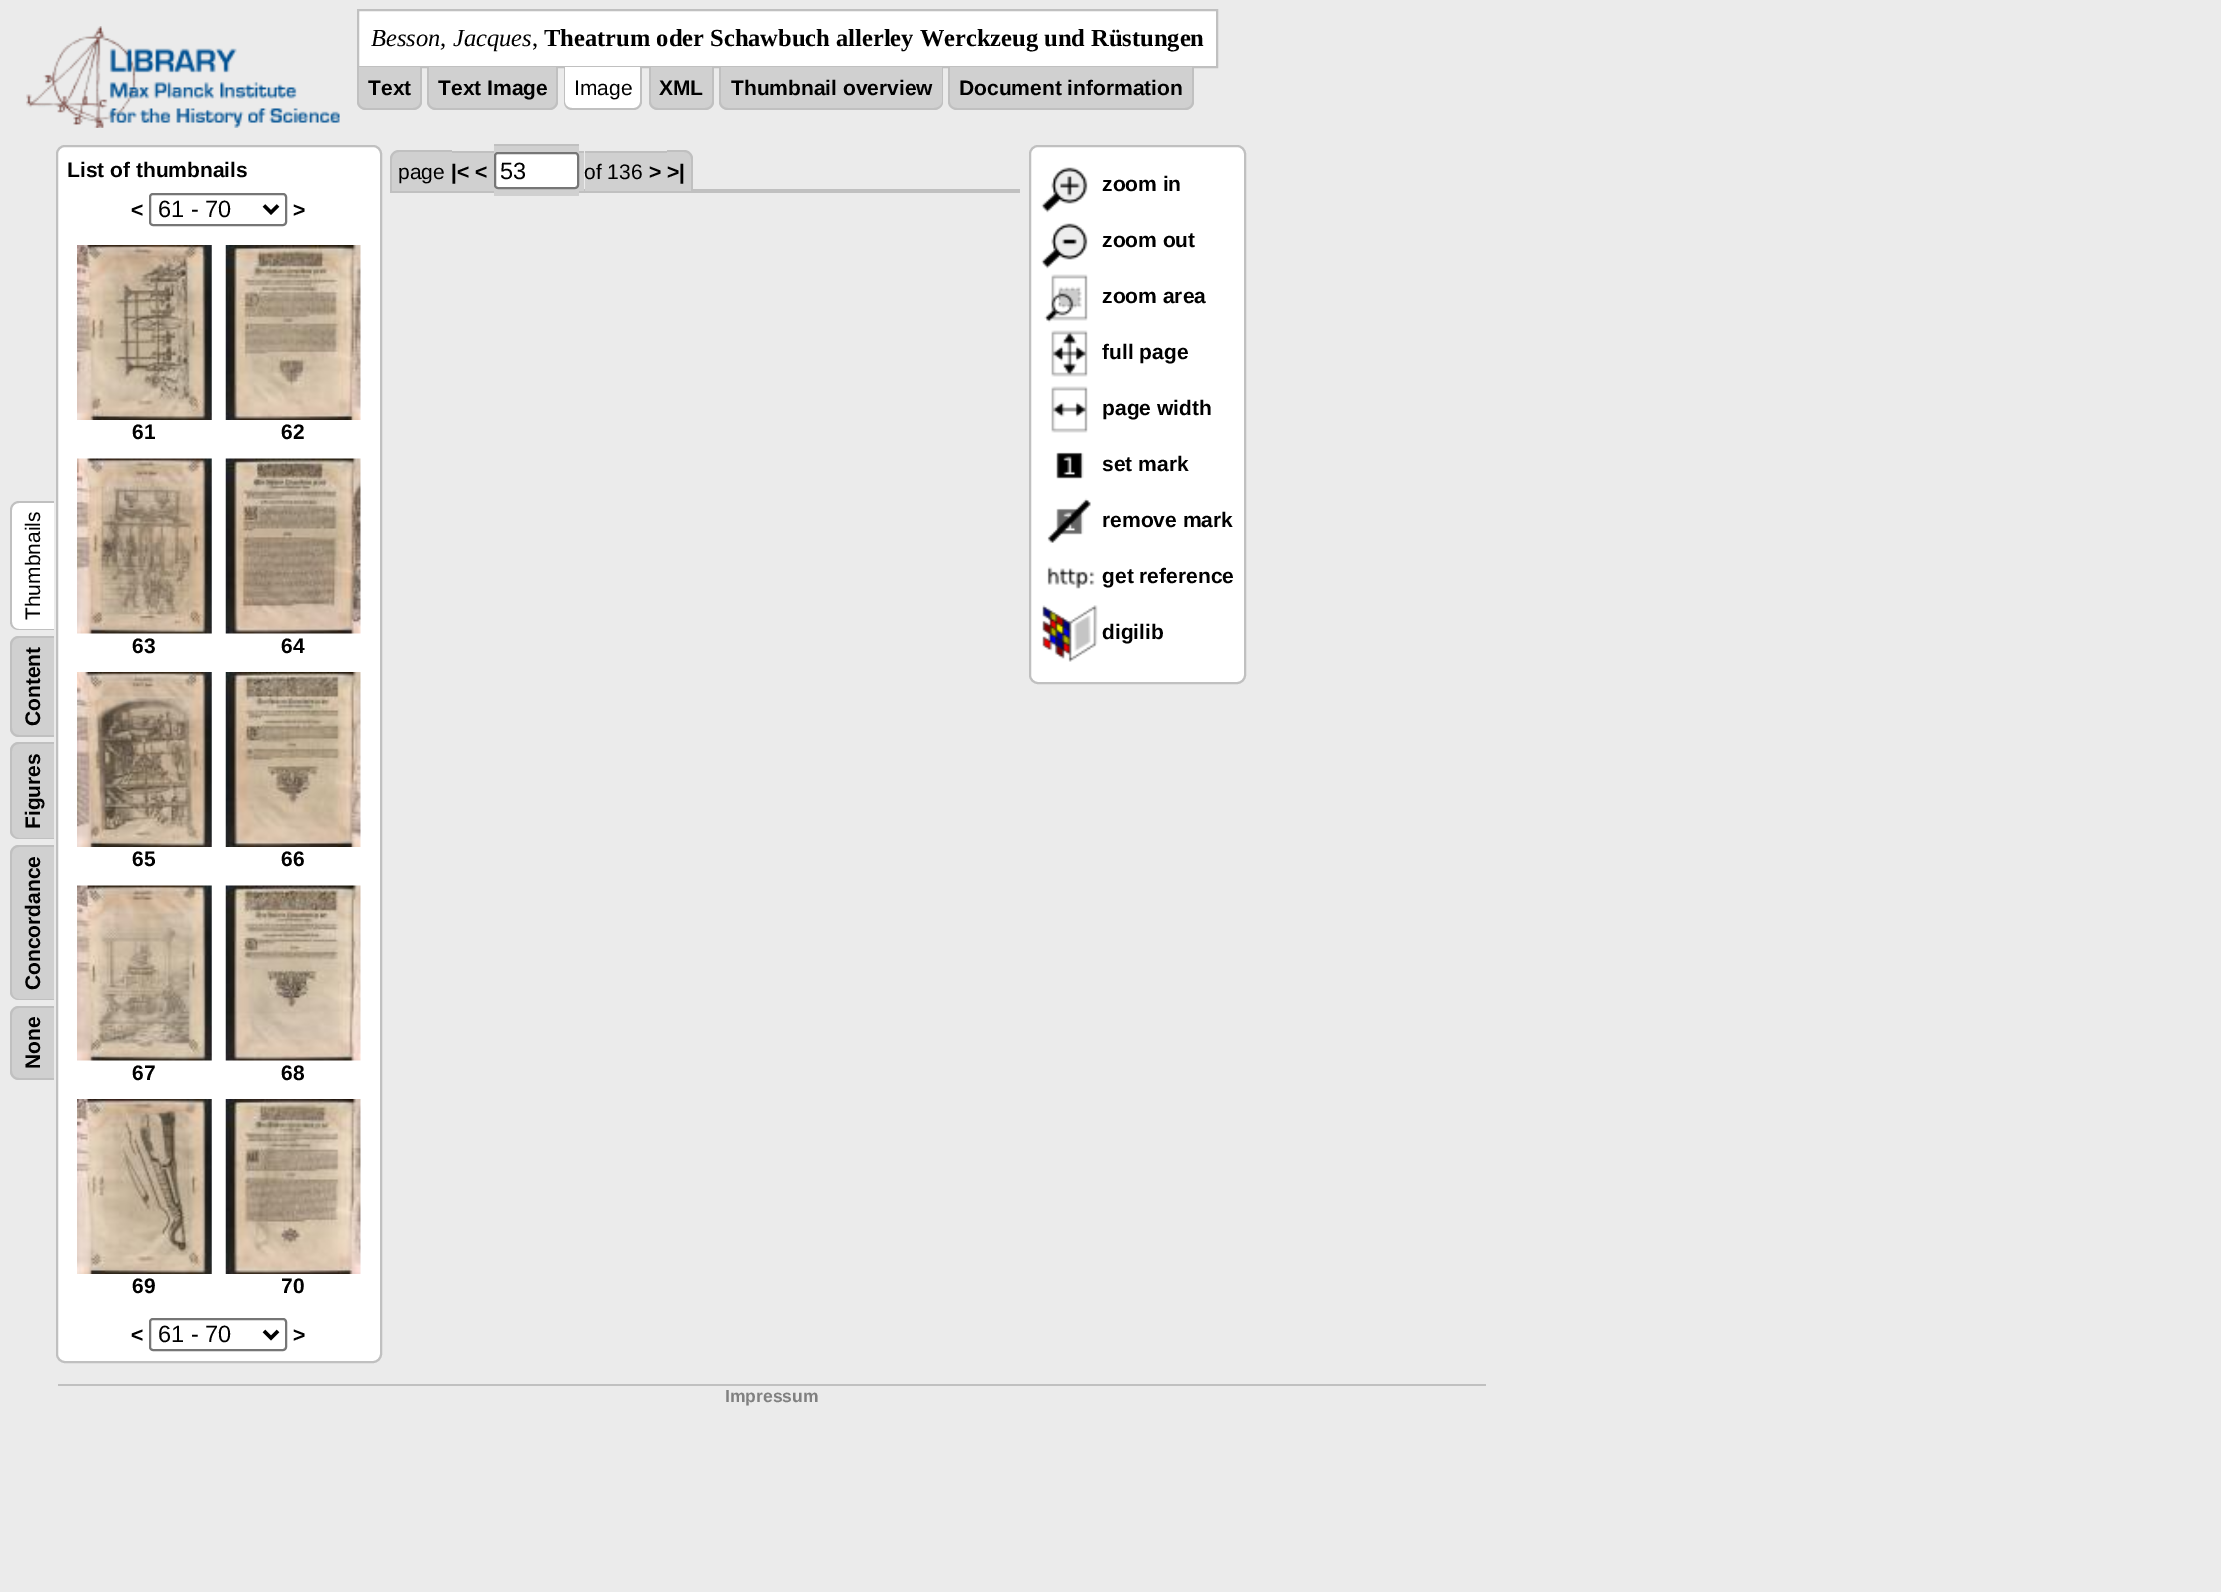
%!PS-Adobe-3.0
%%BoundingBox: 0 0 2221 1592
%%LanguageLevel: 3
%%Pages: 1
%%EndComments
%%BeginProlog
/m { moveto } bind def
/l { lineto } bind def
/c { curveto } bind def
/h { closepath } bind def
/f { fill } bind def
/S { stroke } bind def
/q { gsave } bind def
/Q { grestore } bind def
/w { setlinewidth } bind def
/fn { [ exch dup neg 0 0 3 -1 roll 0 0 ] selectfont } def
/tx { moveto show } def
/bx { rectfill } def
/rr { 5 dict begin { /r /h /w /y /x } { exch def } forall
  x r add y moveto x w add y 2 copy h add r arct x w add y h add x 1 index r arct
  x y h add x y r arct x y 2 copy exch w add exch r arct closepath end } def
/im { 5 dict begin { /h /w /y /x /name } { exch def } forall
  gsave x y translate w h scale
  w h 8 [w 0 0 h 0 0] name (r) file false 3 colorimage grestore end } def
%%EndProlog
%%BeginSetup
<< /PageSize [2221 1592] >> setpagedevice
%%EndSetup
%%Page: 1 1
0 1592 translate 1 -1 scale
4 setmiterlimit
0.922 setgray
0 0 2221 1592 bx
(image0.raw) 26 26 314 102 im
1 setgray
358 10 m 1217 10 l 1217 67 l 358 67 l h q f Q
0.753 setgray
2 w
S
/LiberationSerif-Italic 24.5 fn
0 setgray
(Besson, Jacques) 371 46 tx
/LiberationSerif-Regular 24.5 fn
(,) 532 46 tx
/LiberationSerif-Bold 24.5 fn
(Theatrum oder Schawbuch allerley Werckzeug und Rüstungen) 544 46 tx
0.816 setgray
357 67 m 422 67 l 422 101 l 422 106 418 110 413 110 c 366 110 l 361 110 357 106 357 101 c h f
0.753 setgray
357 66 m 422 66 l 422 102 l 422 106 418 110 413 110 c 366 110 l 361 110 357 106 357 102 c h 359 66 m 420 66 l 420 102 l 420 105 417 108 413 108 c 366 108 l 362 108 359 105 359 102 c h eofill
/LiberationSans-Bold 21 fn
0 setgray
(Text) 368 95 tx
0.816 setgray
427 67 m 558 67 l 558 101 l 558 106 554 110 549 110 c 436 110 l 431 110 427 106 427 101 c h f
0.753 setgray
427 66 m 558 66 l 558 102 l 558 106 554 110 550 110 c 436 110 l 431 110 427 106 427 102 c h 429 66 m 556 66 l 556 102 l 556 105 553 108 550 108 c 436 108 l 432 108 429 105 429 102 c h eofill
0 setgray
(Text Image) 438 95 tx
1 setgray
564 67 m 642 67 l 642 101 l 642 106 638 110 633 110 c 573 110 l 568 110 564 106 564 101 c h f
0.753 setgray
564 66 m 642 66 l 642 102 l 642 106 638 110 634 110 c 572 110 l 567 110 564 106 564 102 c h 565 66 m 640 66 l 640 102 l 640 105 637 108 634 108 c 572 108 l 568 108 565 105 565 102 c h eofill
/LiberationSans-Regular 21 fn
0 setgray
(Image) 574 95 tx
0.816 setgray
649 67 m 714 67 l 714 101 l 714 106 710 110 705 110 c 658 110 l 653 110 649 106 649 101 c h f
0.753 setgray
649 66 m 714 66 l 714 102 l 714 106 710 110 705 110 c 658 110 l 653 110 649 106 649 102 c h 651 66 m 712 66 l 712 102 l 712 105 709 108 705 108 c 658 108 l 654 108 651 105 651 102 c h eofill
/LiberationSans-Bold 21 fn
0 setgray
(XML) 659 95 tx
0.816 setgray
719 67 m 943 67 l 943 101 l 943 106 939 110 934 110 c 728 110 l 723 110 719 106 719 101 c h f
0.753 setgray
719 66 m 943 66 l 943 102 l 943 106 939 110 934 110 c 728 110 l 723 110 719 106 719 102 c h 721 66 m 942 66 l 942 102 l 942 105 938 108 934 108 c 728 108 l 724 108 721 105 721 102 c h eofill
0 setgray
(Thumbnail overview) 731 95 tx
0.816 setgray
949 67 m 1194 67 l 1194 101 l 1194 106 1190 110 1185 110 c 958 110 l 953 110 949 106 949 101 c h f
0.753 setgray
948 66 m 1194 66 l 1194 102 l 1194 106 1190 110 1185 110 c 957 110 l 952 110 948 106 948 102 c h 950 66 m 1192 66 l 1192 102 l 1192 105 1189 108 1185 108 c 957 108 l 953 108 950 105 950 102 c h eofill
0 setgray
(Document information) 959 95 tx
1 setgray
10 622 m 10 510 l 10 505 14 501 19 501 c 54 501 l 54 630 l 19 630 l 14 630 10 627 10 622 c h f
0.753 setgray
10 622 m 10 510 l 10 505 14 501 19 501 c 54 501 l 54 630 l 19 630 l 14 630 10 627 10 622 c h 12 622 m 12 510 l 12 506 15 503 19 503 c 54 503 l 54 629 l 19 629 l 15 629 12 626 12 622 c h eofill
/LiberationSans-Regular 21 fn
0 setgray
q 40 620 translate -90 rotate 0 0 m (Thumbnails) show Q
0.816 setgray
10 728 m 10 645 l 10 640 14 636 19 636 c 54 636 l 54 737 l 19 737 l 14 737 10 733 10 728 c h f
0.753 setgray
10 728 m 10 645 l 10 640 14 636 19 636 c 54 636 l 54 737 l 19 737 l 14 737 10 733 10 728 c h 12 728 m 12 645 l 12 641 15 638 19 638 c 54 638 l 54 735 l 19 735 l 15 735 12 732 12 728 c h eofill
/LiberationSans-Bold 21 fn
0 setgray
q 40 726 translate -90 rotate 0 0 m (Content) show Q
0.816 setgray
10 831 m 10 751 l 10 746 14 742 19 742 c 54 742 l 54 839 l 19 839 l 14 839 10 835 10 831 c h f
0.753 setgray
10 831 m 10 751 l 10 746 14 742 19 742 c 54 742 l 54 839 l 19 839 l 14 839 10 835 10 831 c h 12 831 m 12 751 l 12 747 15 744 19 744 c 54 744 l 54 838 l 19 838 l 15 838 12 834 12 831 c h eofill
0 setgray
q 40 829 translate -90 rotate 0 0 m (Figures) show Q
0.816 setgray
10 992 m 10 854 l 10 849 14 845 19 845 c 54 845 l 54 1000 l 19 1000 l 14 1000 10 996 10 992 c h f
0.753 setgray
10 992 m 10 854 l 10 849 14 845 19 845 c 54 845 l 54 1000 l 19 1000 l 14 1000 10 996 10 992 c h 12 992 m 12 854 l 12 850 15 847 19 847 c 54 847 l 54 999 l 19 999 l 15 999 12 996 12 992 c h eofill
0 setgray
q 40 990 translate -90 rotate 0 0 m (Concordance) show Q
0.816 setgray
10 1071 m 10 1015 l 10 1010 14 1006 19 1006 c 54 1006 l 54 1080 l 19 1080 l 14 1080 10 1076 10 1071 c h f
0.753 setgray
10 1071 m 10 1015 l 10 1010 14 1006 19 1006 c 54 1006 l 54 1080 l 19 1080 l 14 1080 10 1076 10 1071 c h 12 1071 m 12 1015 l 12 1011 15 1008 19 1008 c 54 1008 l 54 1078 l 19 1078 l 15 1078 12 1075 12 1071 c h eofill
0 setgray
q 40 1069 translate -90 rotate 0 0 m (None) show Q
1 setgray
57 146 324 1216 8 rr q f Q
0.753 setgray
S
0 setgray
(List of thumbnails) 67 177 tx
(<) 131 217 tx
0.463 setgray
150 194 136 31 3 rr S
0 setgray
3.5 w
264 205.5 m 271 212.5 l 278 205.5 l S
/LiberationSans-Regular 23.5 fn
(61 - 70) 158 217 tx
/LiberationSans-Bold 21 fn
(>) 293 217 tx
(image1.raw) 77 245 135 175 im
(61) 132 439 tx
(image2.raw) 225 245 136 175 im
(62) 281 439 tx
(image3.raw) 77 458 135 176 im
(63) 132 653 tx
(image4.raw) 225 458 136 176 im
(64) 281 653 tx
(image5.raw) 77 672 135 175 im
(65) 132 866 tx
(image6.raw) 225 672 136 175 im
(66) 281 866 tx
(image7.raw) 77 885 135 176 im
(67) 132 1080 tx
(image8.raw) 225 885 136 176 im
(68) 281 1080 tx
(image9.raw) 77 1099 135 175 im
(69) 132 1293 tx
(image10.raw) 225 1099 136 175 im
(70) 281 1293 tx
(<) 131 1342 tx
0.463 setgray
2 w
150 1319 136 31 3 rr S
0 setgray
3.5 w
264 1331 m 271 1338 l 278 1331 l S
/LiberationSans-Regular 23.5 fn
(61 - 70) 158 1342 tx
/LiberationSans-Bold 21 fn
(>) 293 1342 tx
0.753 setgray
390 189 630 4 bx
0.816 setgray
399 151 m 452 151 l 452 191 l 390 191 l 390 160 l 390 155 394 151 399 151 c h f
0.753 setgray
399 150 m 452 150 l 452 191 l 390 191 l 390 159 l 390 154 394 150 399 150 c h 399 152 m 452 152 l 452 191 l 392 191 l 392 159 l 392 155 395 152 399 152 c h eofill
0.816 setgray
452 153 17 38 bx
0.753 setgray
452 151 17 2 bx
0.816 setgray
469 151 5 40 bx
0.753 setgray
469 151 18 2 bx
0.816 setgray
474 153 13 38 bx
487 151 7 40 bx
0.753 setgray
487 151 7 2 bx
0.816 setgray
494 146 85 50 bx
0.753 setgray
494 144 85 2 bx
0.816 setgray
579 151 5 40 bx
0.753 setgray
579 151 5 2 bx
0.816 setgray
585 153 77 38 bx
0.753 setgray
585 151 77 2 bx
0.816 setgray
662 151 5 40 bx
0.753 setgray
662 151 5 2 bx
0.816 setgray
667 151 m 684 151 l 689 151 693 155 693 160 c 693 191 l 667 191 l h f
0.753 setgray
667 150 m 684 150 l 689 150 693 154 693 159 c 693 191 l 667 191 l h 667 152 m 684 152 l 688 152 691 155 691 159 c 691 191 l 667 191 l h eofill
/LiberationSans-Regular 21 fn
0 setgray
(page) 398 179 tx
/LiberationSans-Bold 21 fn
(|< <) 451 179 tx
1 setgray
495 153 83 35 3 rr q f Q
0.463 setgray
2 w
S
/LiberationSans-Regular 23.5 fn
0 setgray
(53) 500 179 tx
/LiberationSans-Regular 21 fn
(of 136) 584 179 tx
/LiberationSans-Bold 21 fn
(> >|) 649 179 tx
1 setgray
1030 146 215 537 8 rr q f Q
0.753 setgray
S
(image11.raw) 1041 167 47 46 im
0 setgray
(zoom in) 1102 191 tx
(image12.raw) 1041 223 47 46 im
(zoom out) 1102 247 tx
(image13.raw) 1044 274 44 49 im
(zoom area) 1102 303 tx
(image14.raw) 1051 330 37 47 im
(full page) 1102 359 tx
(image15.raw) 1051 386 37 47 im
(page width) 1102 415 tx
(image16.raw) 1056 452 28 27 im
(set mark) 1102 471 tx
(image17.raw) 1047 498 44 45 im
(remove mark) 1102 527 tx
(image18.raw) 1047 566 48 23 im
(get reference) 1102 583 tx
(image19.raw) 1042 605 56 57 im
(digilib) 1102 639 tx
0.753 setgray
58 1384 1428 2 bx
/LiberationSans-Bold 17.5 fn
0.502 setgray
(Impressum) 725 1402 tx
showpage
%%EOF
